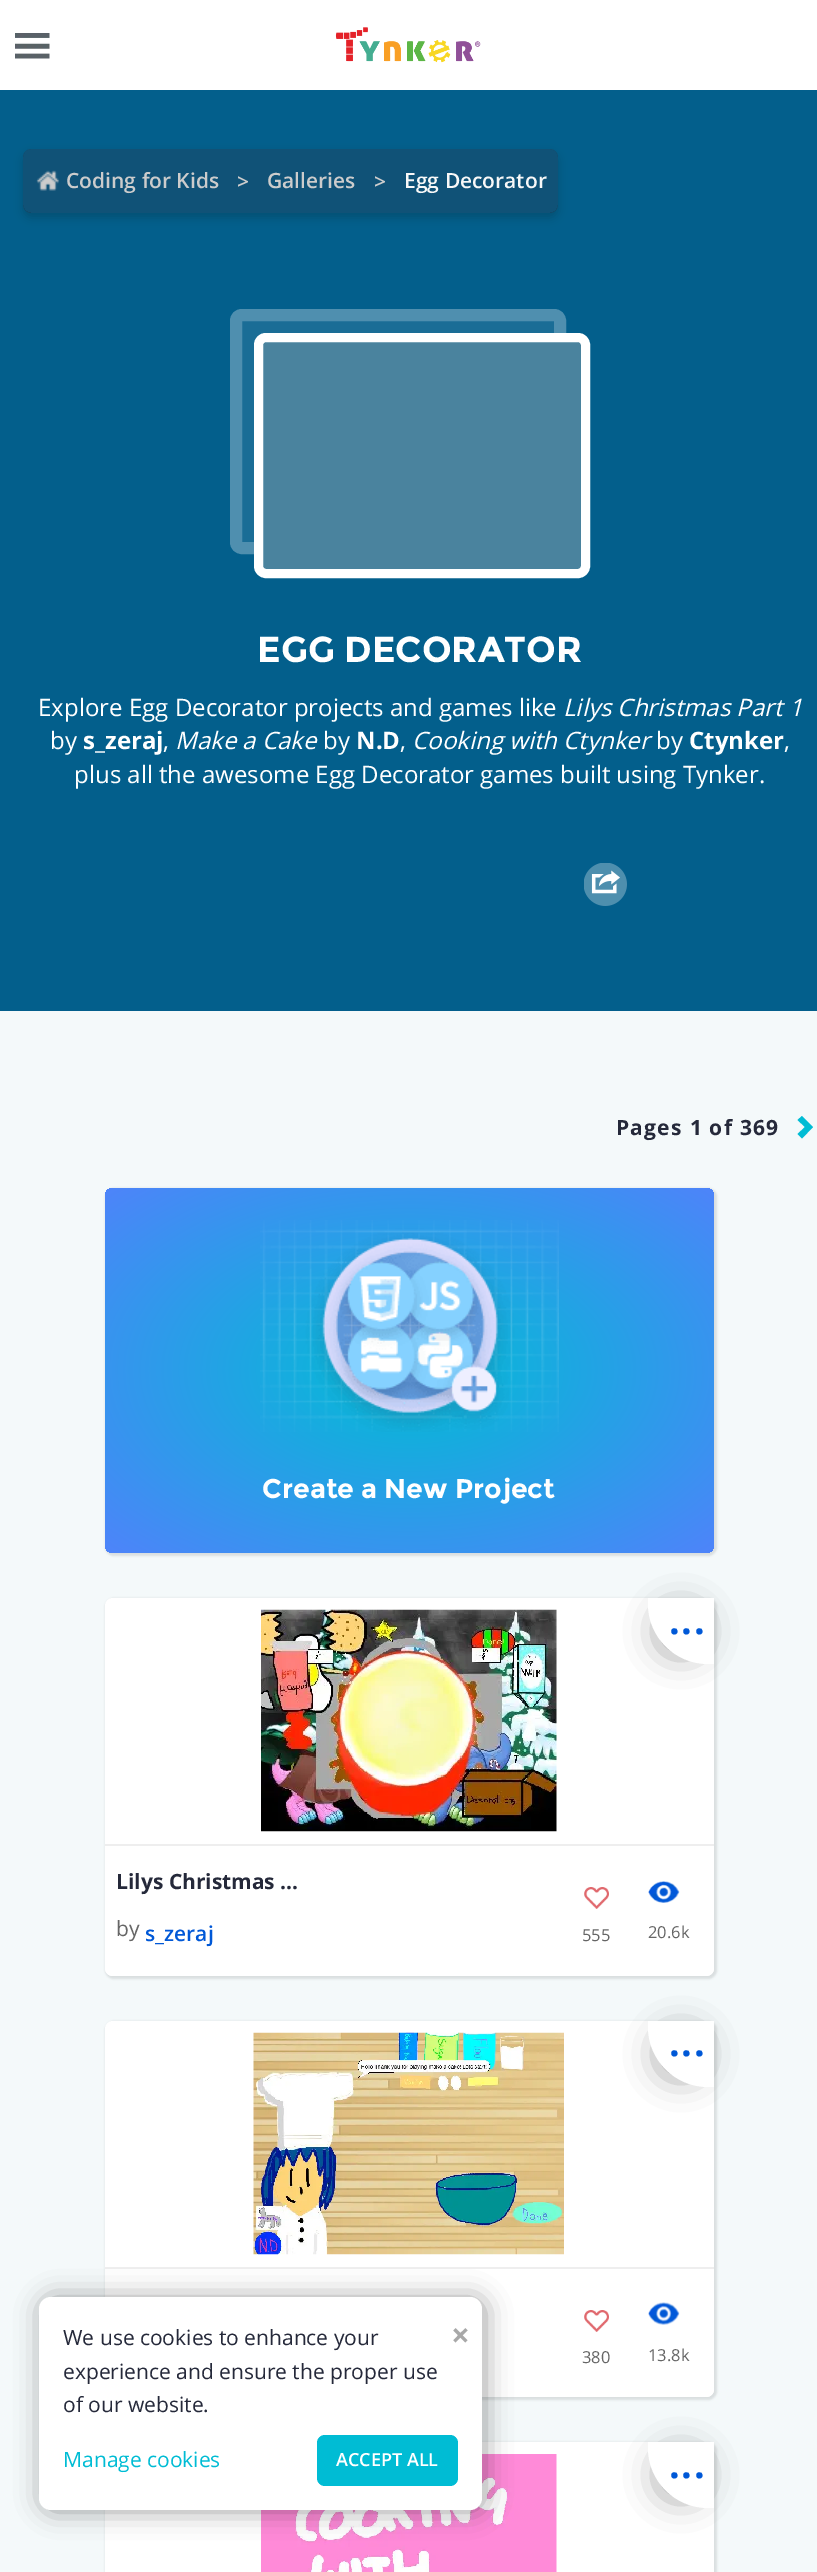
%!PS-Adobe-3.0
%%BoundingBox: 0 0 817 2572
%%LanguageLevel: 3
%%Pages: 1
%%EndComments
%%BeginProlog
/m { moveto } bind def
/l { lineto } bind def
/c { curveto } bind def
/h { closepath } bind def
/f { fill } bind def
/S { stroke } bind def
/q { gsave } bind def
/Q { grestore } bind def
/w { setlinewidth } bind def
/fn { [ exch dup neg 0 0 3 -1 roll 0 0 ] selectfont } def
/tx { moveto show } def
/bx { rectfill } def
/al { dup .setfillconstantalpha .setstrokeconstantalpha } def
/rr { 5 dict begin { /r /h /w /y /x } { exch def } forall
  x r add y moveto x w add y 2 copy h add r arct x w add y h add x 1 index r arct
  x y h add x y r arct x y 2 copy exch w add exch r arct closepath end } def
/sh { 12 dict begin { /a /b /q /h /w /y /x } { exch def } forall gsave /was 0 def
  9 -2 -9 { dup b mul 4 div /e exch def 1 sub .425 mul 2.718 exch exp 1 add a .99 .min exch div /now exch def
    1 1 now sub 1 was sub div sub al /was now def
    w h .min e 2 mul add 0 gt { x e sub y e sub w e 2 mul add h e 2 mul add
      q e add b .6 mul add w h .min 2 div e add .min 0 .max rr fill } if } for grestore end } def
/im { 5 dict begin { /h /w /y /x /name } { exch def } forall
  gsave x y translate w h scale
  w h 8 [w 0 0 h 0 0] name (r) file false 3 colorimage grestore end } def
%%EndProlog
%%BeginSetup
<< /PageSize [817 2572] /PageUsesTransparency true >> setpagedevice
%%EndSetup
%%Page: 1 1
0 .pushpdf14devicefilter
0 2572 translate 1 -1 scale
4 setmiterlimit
1 setgray
0 0 817 2572 bx
(image0.raw) 15 33 35 26 im
(image1.raw) 335 27 146 36 im
0.012 0.373 0.549 setrgbcolor
0 90 817 921 bx
q
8 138 m 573 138 l 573 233 l 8 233 l h 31 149 m 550 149 l 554.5 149 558 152.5 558 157 c 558 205 l 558 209.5 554.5 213 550 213 c 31 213 l 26.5 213 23 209.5 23 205 c 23 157 l 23 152.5 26.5 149 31 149 c h eoclip newpath
0 setgray
23 153 535 65 8 4.5 0.16 sh
Q
0.3 al
0.18 0.2 0.278 setrgbcolor
23 149 535 64 8 rr f
1 al
(image2.raw) 36 170 24 21 im
/OpenSans-SemiBold 21 fn
0.8 setgray
(Coding for Kids) 66 188 tx
(>) 237 189 tx
(Galleries) 267 188 tx
(>) 374 189 tx
0.973 setgray
(Egg Decorator) 404 188 tx
0.102 0.427 0.588 setrgbcolor
236 315 324 233 6 rr q f Q
0.31 0.561 0.686 setrgbcolor
12 w
S
0.29 0.514 0.62 setrgbcolor
258.5 337.5 327 236 7.5 rr q f Q
1 setgray
9 w
S
/Montserrat-Bold 36 fn
(EGG DECORATOR) 257 662 tx
/OpenSans-Regular 24 fn
(Explore Egg Decorator projects and games like) 38 716 tx
/OpenSans-Italic 24 fn
(Lilys Christmas Part 1) 563 716 tx
/OpenSans-Regular 24 fn
(by) 50 749 tx
/OpenSans-Bold 24 fn
(s_zeraj) 83 749 tx
/OpenSans-Regular 24 fn
(,) 163 749 tx
/OpenSans-Italic 24 fn
(Make a Cake) 175 749 tx
/OpenSans-Regular 24 fn
(by) 323 749 tx
/OpenSans-Bold 24 fn
(N.D) 356 749 tx
/OpenSans-Regular 24 fn
(,) 400 749 tx
/OpenSans-Italic 24 fn
(Cooking with Ctynker) 412 749 tx
/OpenSans-Regular 24 fn
(by) 656 749 tx
/OpenSans-Bold 24 fn
(Ctynker) 689 749 tx
/OpenSans-Regular 24 fn
(,) 784 749 tx
(plus all the awesome Egg Decorator games built using Tynker.) 74 783 tx
(image3.raw) 584 863 43 43 im
0.957 0.976 0.98 setrgbcolor
0 1011 817 1561 bx
/OpenSans-Bold 21 fn
0.145 0.161 0.227 setrgbcolor
616 1135 m 1.25 0 (Pages 1 of 369) ashow
0 0.737 0.831 setrgbcolor
802 1116 m 797.5 1120 l 805 1127 l 797.5 1134 l 802 1138.5 l 813 1127 l h f
0 setgray
105 1188 612 368 9 1 0.1 sh
q 105 1188 609 365 8 rr clip newpath 410 1370 translate 431 258 scale
<< /ShadingType 3 /ColorSpace /DeviceRGB /Coords [0 0 0 0 0 1] /Extend [true true] /Function << /FunctionType 2 /Domain [0 1] /C0 [0 0.737 0.831] /C1 [0.306 0.518 0.98] /N 1 >> >> shfill Q
(image4.raw) 260 1220 299 212 im
/Montserrat-Bold 27 fn
1 setgray
(Create a New Project) 262 1498 tx
0 setgray
105 1598 612 381 9 1 0.1 sh
1 setgray
105 1598 609 378 8 rr f
(image5.raw) 261 1609 296 223 im
0 setgray
663 1613 36 36 36 18 0.5 sh
1 setgray
648 1598 m 714 1598 l 714 1664 l 708 1664 l 675 1664 648 1637 648 1604 c h f
/OpenSans-Bold 38 fn
0 0.345 0.843 setrgbcolor
669 1634 m 1.5 0 (...) ashow
1 setgray
105 1844 m 714 1844 l 714 1968 l 714 1972.5 710.5 1976 706 1976 c 113 1976 l 108.5 1976 105 1972.5 105 1968 c h f
0.933 setgray
105 1844 609 2 bx
/OpenSans-Bold 21 fn
0.145 0.161 0.227 setrgbcolor
(Lilys Christmas …) 116 1889 tx
/OpenSans-Regular 21 fn
0.4 setgray
(by) 116 1936 tx
/OpenSans-SemiBold 21 fn
0 0.345 0.843 setrgbcolor
(s_zeraj) 145 1941 tx
(image6.raw) 584 1887 25 22 im
/OpenSans-Regular 16.5 fn
0.4 setgray
(555) 582 1941 tx
(image7.raw) 648 1881 32 22 im
(20.6k) 648 1938 tx
0 setgray
105 2021 612 379 9 1 0.1 sh
1 setgray
105 2021 609 376 8 rr f
(image8.raw) 253 2032 311 223 im
0 setgray
663 2036 36 36 36 18 0.5 sh
1 setgray
648 2021 m 714 2021 l 714 2087 l 708 2087 l 675 2087 648 2060 648 2027 c h f
/OpenSans-Bold 38 fn
0 0.345 0.843 setrgbcolor
669 2056 m 1.5 0 (...) ashow
1 setgray
105 2267 m 714 2267 l 714 2389 l 714 2393.5 710.5 2397 706 2397 c 113 2397 l 108.5 2397 105 2393.5 105 2389 c h f
0.933 setgray
105 2267 609 2 bx
(image6.raw) 584 2310 25 22 im
/OpenSans-Regular 16.5 fn
0.4 setgray
(380) 582 2363 tx
(image9.raw) 648 2302 32 23 im
(13.8k) 648 2361 tx
0 setgray
105 2442 612 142 9 1 0.1 sh
1 setgray
105 2442 609 130 bx
(image10.raw) 261 2454 296 118 im
0 setgray
663 2457 36 36 36 18 0.5 sh
1 setgray
648 2442 m 714 2442 l 714 2508 l 708 2508 l 675 2508 648 2481 648 2448 c h f
/OpenSans-Bold 38 fn
0 0.345 0.843 setrgbcolor
669 2478 m 1.5 0 (...) ashow
0 setgray
42 2298 443 213 12 13 0.37 sh
1 setgray
39 2297 443 213 12 rr f
/OpenSans-Regular 21 fn
0.145 0.161 0.227 setrgbcolor
(We use cookies to enhance your) 63 2345 tx
(experience and ensure the proper use) 63 2379 tx
(of our website.) 63 2412 tx
0 0.737 0.831 setrgbcolor
(Manage cookies) 63 2467 tx
317 2435 141 51 8 rr f
/OpenSans-SemiBold 18 fn
1 setgray
(ACCEPT ALL) 336 2466 tx
/OpenSans-Bold 33 fn
0.659 setgray
(×) 451 2347 tx
.poppdf14devicefilter showpage
%%EOF
